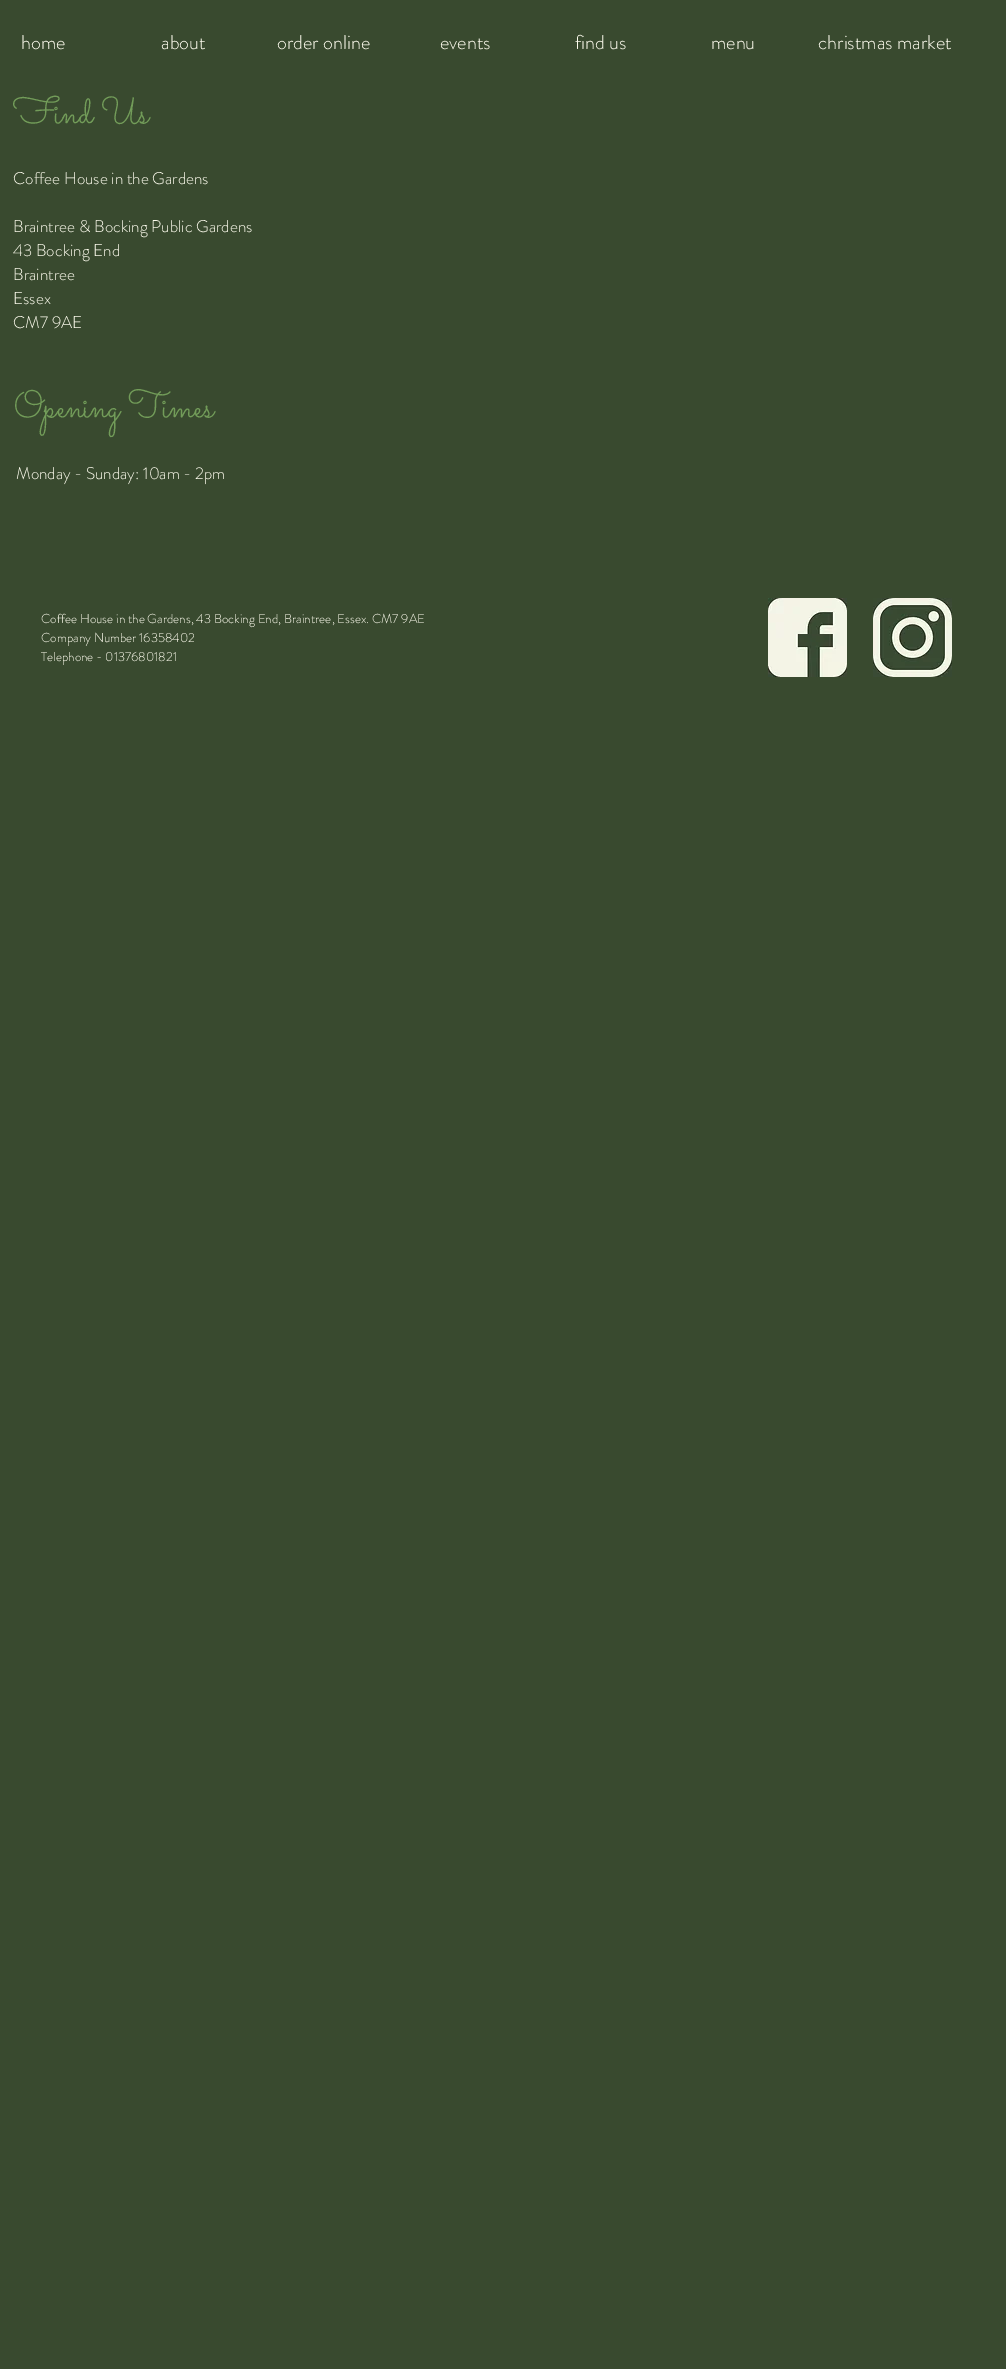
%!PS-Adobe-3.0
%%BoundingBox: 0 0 1006 2369
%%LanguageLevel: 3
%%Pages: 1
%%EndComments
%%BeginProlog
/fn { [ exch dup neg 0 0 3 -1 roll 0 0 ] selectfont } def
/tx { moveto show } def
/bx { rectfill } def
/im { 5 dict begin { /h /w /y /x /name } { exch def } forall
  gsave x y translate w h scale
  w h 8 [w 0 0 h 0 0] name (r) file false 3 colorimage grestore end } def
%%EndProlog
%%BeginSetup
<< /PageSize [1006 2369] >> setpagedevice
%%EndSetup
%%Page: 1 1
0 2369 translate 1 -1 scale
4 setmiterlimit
0.224 0.29 0.184 setrgbcolor
0 0 1006 2369 bx
/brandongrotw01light-Light 20 fn
0.988 0.984 0.929 setrgbcolor
(home) 21 49 tx
(about) 161 49 tx
(order online) 277 49 tx
(events) 440 49 tx
(find us) 575 49 tx
(menu) 711 49 tx
(christmas market) 818 49 tx
/Sacramento-Regular 38 fn
0.447 0.612 0.349 setrgbcolor
(Find Us) 13 123 tx
/brandongrotw01light-Light 17 fn
0.988 0.984 0.929 setrgbcolor
(Coffee House in the Gardens) 13 184 tx
(Braintree & Bocking Public Gardens) 13 232 tx
(43 Bocking End) 13 256 tx
(Braintree) 13 280 tx
(Essex) 13 304 tx
(CM7 9AE) 13 328 tx
/Sacramento-Regular 38 fn
0.447 0.612 0.349 setrgbcolor
(Opening Times) 14 417 tx
/brandongrotw01light-Light 17 fn
0.988 0.984 0.929 setrgbcolor
(Monday - Sunday: 10am - 2pm) 16 479 tx
/brandongrotw01light-Light 13 fn
(Coffee House in the Gardens, 43 Bocking End, Braintree, Essex. CM7 9AE) 41 623 tx
(Company Number 16358402) 41 642 tx
(Telephone - 01376801821) 41 661 tx
(image0.raw) 768 598 79 79 im
(image1.raw) 873 598 79 79 im
showpage
%%EOF
